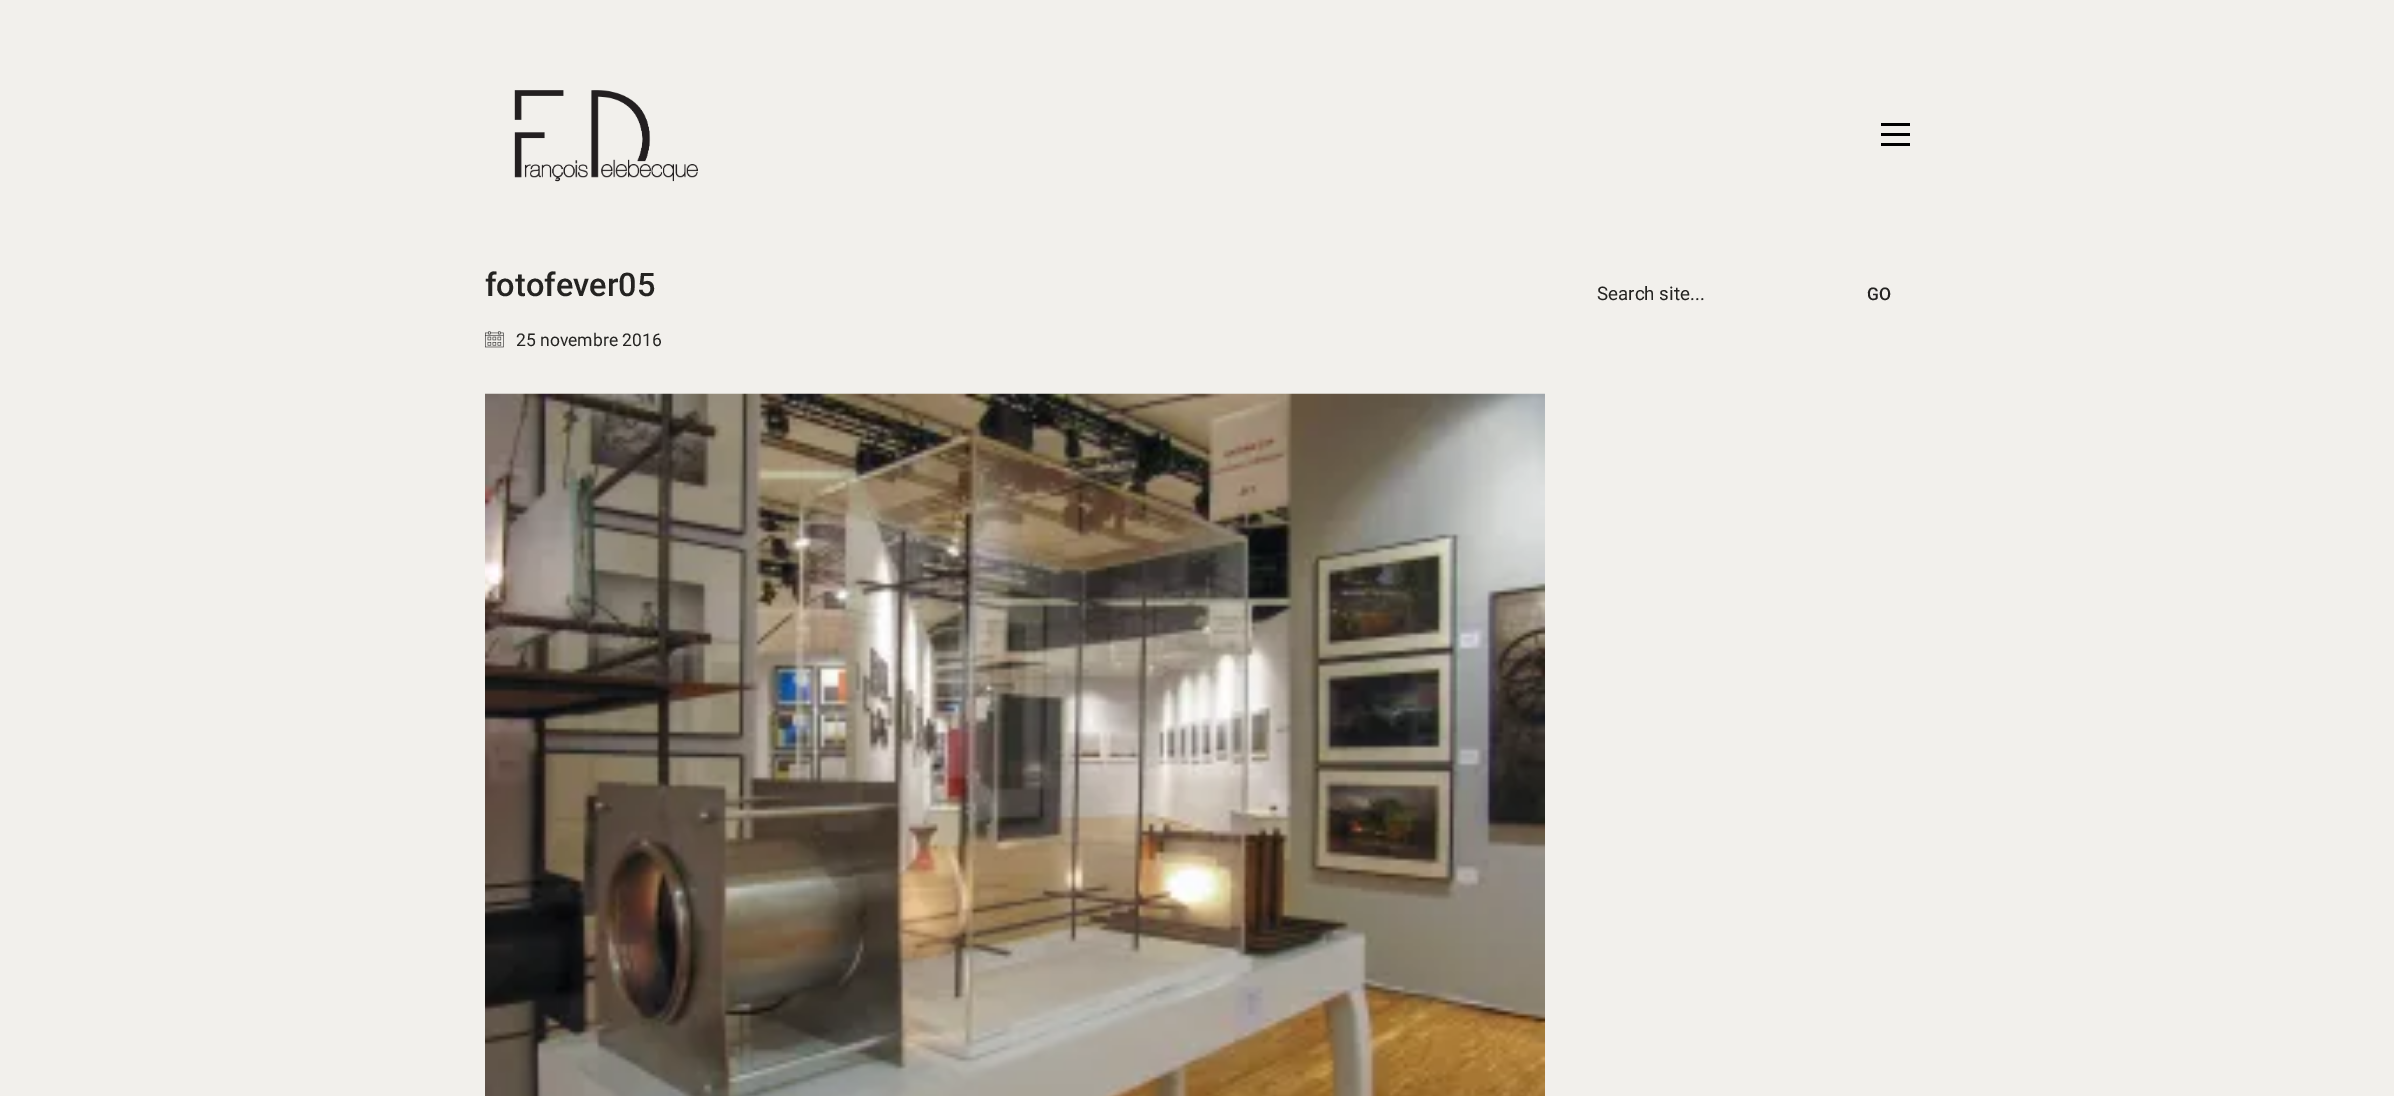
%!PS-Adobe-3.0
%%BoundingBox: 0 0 2394 1096
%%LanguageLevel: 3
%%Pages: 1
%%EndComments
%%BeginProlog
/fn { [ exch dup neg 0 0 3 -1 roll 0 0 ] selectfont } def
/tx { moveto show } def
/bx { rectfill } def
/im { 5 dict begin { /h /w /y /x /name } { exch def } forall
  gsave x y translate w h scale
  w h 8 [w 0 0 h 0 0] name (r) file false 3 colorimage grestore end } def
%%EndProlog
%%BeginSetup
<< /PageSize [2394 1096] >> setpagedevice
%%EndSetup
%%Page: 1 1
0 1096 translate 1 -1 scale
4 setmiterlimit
0.949 0.941 0.925 setrgbcolor
0 0 2394 1096 bx
(image0.raw) 514 90 184 92 im
0 setgray
1881 123 29 3 bx
1881 133 29 3 bx
1881 143 29 3 bx
/Roboto-Medium 32.5 fn
0.141 0.137 0.129 setrgbcolor
(fotofever05) 485 296 tx
(image1.raw) 485 331 19 17 im
/Roboto-Regular 17.5 fn
(25 novembre 2016) 516 346 tx
(image2.raw) 485 393 1060 703 im
/Roboto-Regular 18.75 fn
(Search site...) 1597 300 tx
/Roboto-Medium 17.5 fn
(GO) 1867 300 tx
showpage
%%EOF
